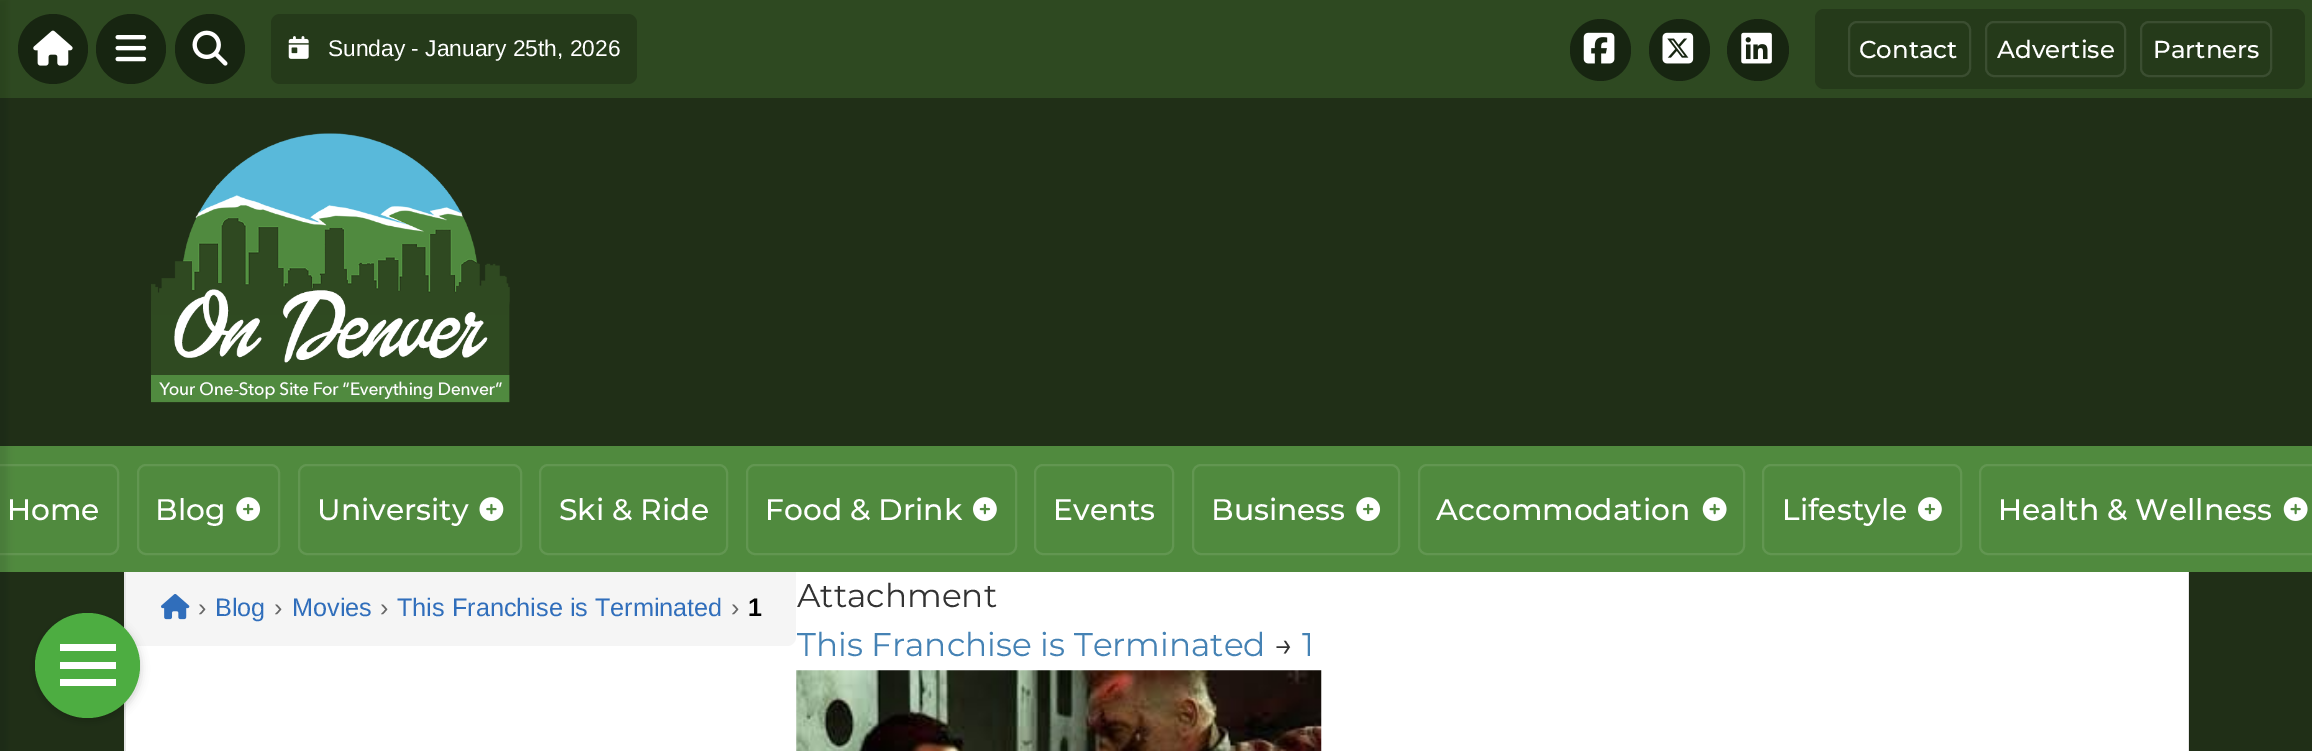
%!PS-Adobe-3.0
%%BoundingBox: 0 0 2312 751
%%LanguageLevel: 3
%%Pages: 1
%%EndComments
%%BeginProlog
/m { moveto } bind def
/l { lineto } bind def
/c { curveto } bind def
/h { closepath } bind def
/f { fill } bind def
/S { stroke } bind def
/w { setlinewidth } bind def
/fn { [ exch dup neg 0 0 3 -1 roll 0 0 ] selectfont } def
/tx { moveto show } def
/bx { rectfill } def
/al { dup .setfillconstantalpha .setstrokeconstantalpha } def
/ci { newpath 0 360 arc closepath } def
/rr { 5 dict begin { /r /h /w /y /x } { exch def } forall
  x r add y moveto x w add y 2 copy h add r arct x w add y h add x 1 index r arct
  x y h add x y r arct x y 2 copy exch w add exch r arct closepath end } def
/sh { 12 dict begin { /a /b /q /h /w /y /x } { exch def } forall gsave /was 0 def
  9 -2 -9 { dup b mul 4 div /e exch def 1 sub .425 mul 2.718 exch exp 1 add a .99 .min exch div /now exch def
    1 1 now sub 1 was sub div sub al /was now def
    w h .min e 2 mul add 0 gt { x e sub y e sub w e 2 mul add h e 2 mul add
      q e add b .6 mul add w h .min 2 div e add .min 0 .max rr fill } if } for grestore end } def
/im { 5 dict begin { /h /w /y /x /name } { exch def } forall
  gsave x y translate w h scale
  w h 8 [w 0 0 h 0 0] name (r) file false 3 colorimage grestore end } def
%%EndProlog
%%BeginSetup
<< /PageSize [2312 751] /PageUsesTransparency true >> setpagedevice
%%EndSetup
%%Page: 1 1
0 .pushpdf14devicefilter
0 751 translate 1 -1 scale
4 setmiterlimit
0.125 0.184 0.09 setrgbcolor
0 0 2312 751 bx
0.114 0.165 0.082 setrgbcolor
2189 572 1 179 bx
0.18 0.286 0.129 setrgbcolor
0 0 2312 98 bx
0.09 0.145 0.067 setrgbcolor
53 49 35 ci f
0.314 0.541 0.243 setrgbcolor
0 446 2312 126 bx
0.384 0.588 0.318 setrgbcolor
2 w
-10 465 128 89 8 rr S
0 setgray
-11 0 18 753 0 3.5 0.1 sh
(image0.raw) 33 30 40 36 im
0.09 0.145 0.067 setrgbcolor
131 49 35 ci f
(image1.raw) 115 35 32 27 im
210 49 35 ci f
(image2.raw) 192 30 36 36 im
0.145 0.227 0.102 setrgbcolor
271 14 366 70 9 rr f
(image3.raw) 288 36 21 23 im
/LiberationSans-Regular 22.75 fn
1 setgray
(Sunday - January 25th, 2026) 328 56 tx
0.09 0.145 0.067 setrgbcolor
1570 19 61 62 30.5 rr f
(image4.raw) 1583 32 32 32 im
1649 19 61 62 30.5 rr f
(image5.raw) 1662 32 32 32 im
1758 50 31 ci f
(image6.raw) 1741 32 31 32 im
0.145 0.227 0.102 setrgbcolor
1815 9 490 80 9 rr f
0.231 0.306 0.192 setrgbcolor
1849 22 121 54 8 rr S
/Montserrat-Medium 24.5 fn
1 setgray
(Contact) 1859 58 tx
0.231 0.306 0.192 setrgbcolor
1986 22 139 54 8 rr S
1 setgray
(Advertise) 1997 58 tx
0.231 0.306 0.192 setrgbcolor
2141 22 130 54 8 rr S
1 setgray
(Partners) 2153 58 tx
(image7.raw) 151 133 359 270 im
/Montserrat-Medium 29.75 fn
(Home) 7 520 tx
0.384 0.588 0.318 setrgbcolor
138 465 141 89 8 rr S
1 setgray
(Blog) 155 520 tx
(image8.raw) 236 497 25 24 im
0.384 0.588 0.318 setrgbcolor
299 465 222 89 8 rr S
1 setgray
(University) 317 520 tx
(image9.raw) 479 497 25 24 im
0.384 0.588 0.318 setrgbcolor
540 465 187 89 8 rr S
1 setgray
(Ski & Ride) 559 520 tx
0.384 0.588 0.318 setrgbcolor
747 465 269 89 8 rr S
1 setgray
(Food & Drink) 765 520 tx
(image10.raw) 973 497 24 24 im
0.384 0.588 0.318 setrgbcolor
1035 465 138 89 8 rr S
1 setgray
(Events) 1053 520 tx
0.384 0.588 0.318 setrgbcolor
1193 465 206 89 8 rr S
1 setgray
(Business) 1211 520 tx
(image8.raw) 1356 497 25 24 im
0.384 0.588 0.318 setrgbcolor
1419 465 325 89 8 rr S
1 setgray
(Accommodation) 1436 520 tx
(image11.raw) 1702 497 25 24 im
0.384 0.588 0.318 setrgbcolor
1763 465 198 89 8 rr S
1 setgray
(Lifestyle) 1782 520 tx
(image10.raw) 1918 497 24 24 im
0.384 0.588 0.318 setrgbcolor
1980 465 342 89 8 rr S
1 setgray
(Health & Wellness) 1998 520 tx
(image11.raw) 2283 497 25 24 im
126 572 2062 179 bx
0.902 setgray
124 572 2 179 bx
0.961 setgray
126 572 m 796 572 l 796 637 l 796 642 792 646 787 646 c 126 646 l h f
0 setgray
35 616 105 105 52.5 4.5 0.2 sh
0.302 0.678 0.255 setrgbcolor
87.5 665.5 52.5 ci f
1 setgray
60 644 56 7 bx
60 662 56 7 bx
60 679 56 7 bx
0.902 setgray
2188 572 1 179 bx
(image12.raw) 161 594 29 26 im
/LiberationSans-Regular 25.25 fn
0.4 setgray
(›) 198 616 tx
0.188 0.431 0.733 setrgbcolor
(Blog) 215 616 tx
0.4 setgray
(›) 274 616 tx
0.188 0.431 0.733 setrgbcolor
(Movies) 292 616 tx
0.4 setgray
(›) 380 616 tx
0.188 0.431 0.733 setrgbcolor
(This Franchise is Terminated) 397 616 tx
0.4 setgray
(›) 731 616 tx
/LiberationSans-Bold 25.25 fn
0 setgray
(1) 748 616 tx
/Montserrat-Regular 32.75 fn
0.2 setgray
(Attachment) 797 607 tx
0.271 0.51 0.706 setrgbcolor
(This Franchise is Terminated) 797 656 tx
0.2 setgray
(→) 1274 656 tx
0.271 0.51 0.706 setrgbcolor
(1) 1302 656 tx
(image13.raw) 796 670 526 81 im
.poppdf14devicefilter showpage
%%EOF
